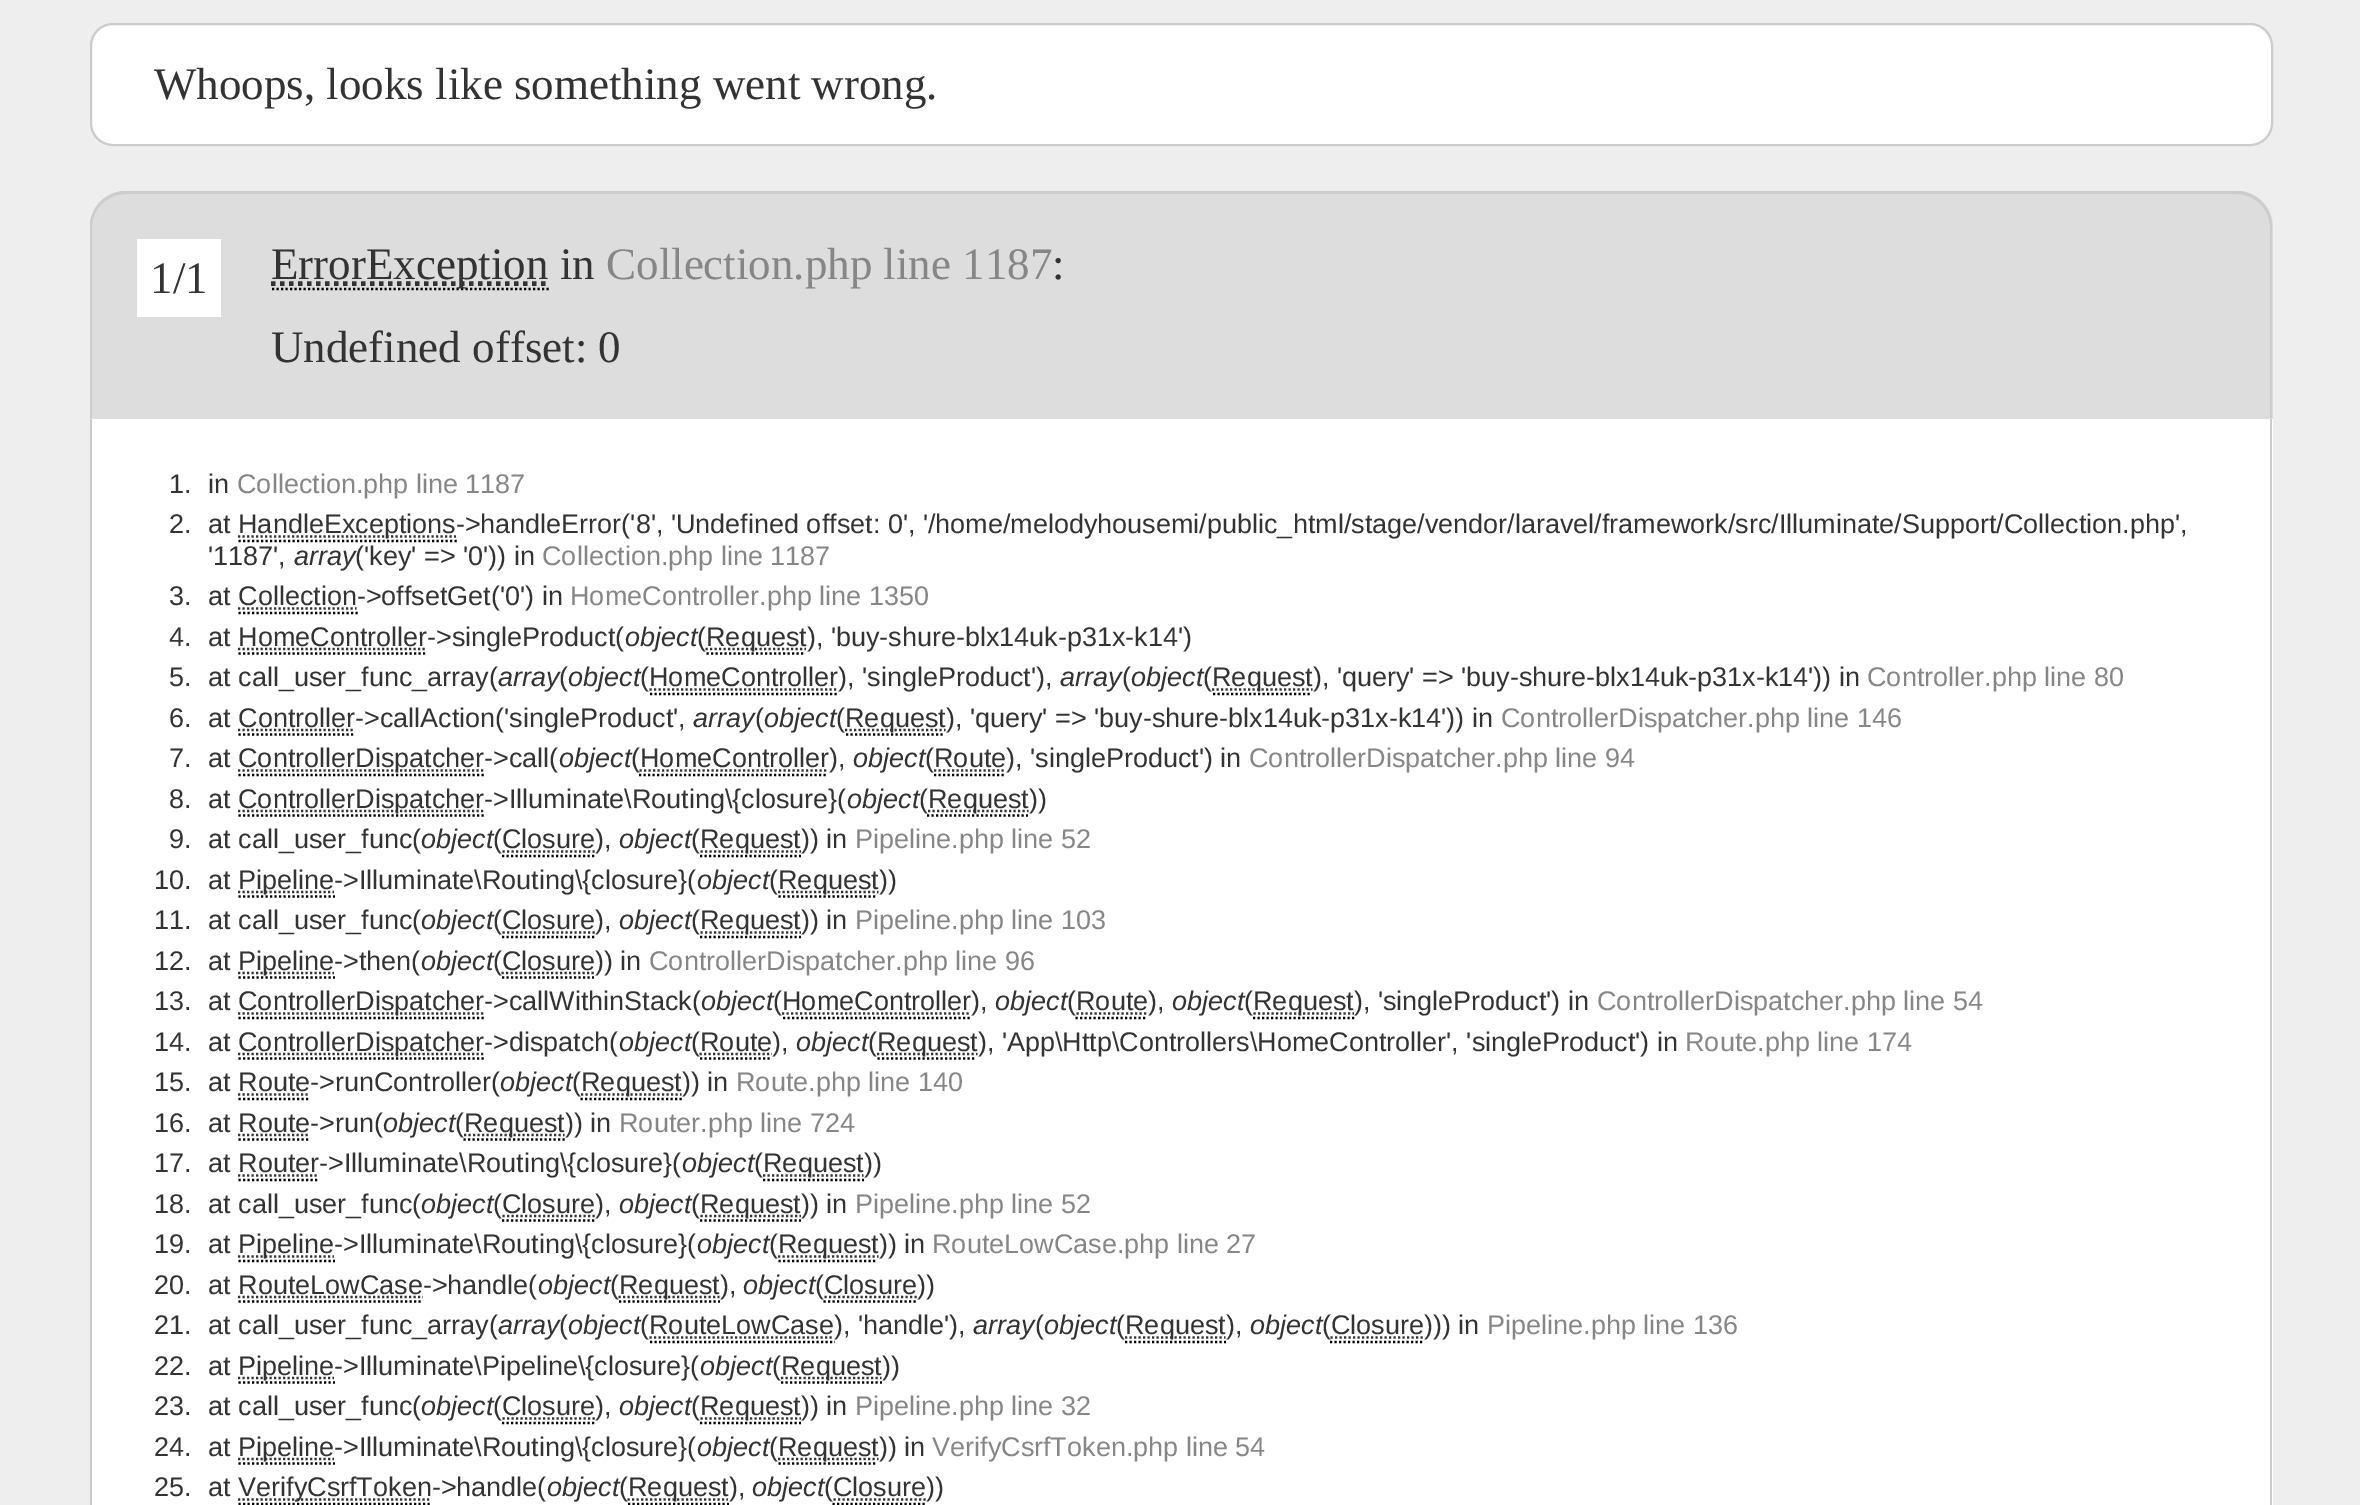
%!PS-Adobe-3.0
%%BoundingBox: 0 0 2360 1505
%%LanguageLevel: 3
%%Pages: 1
%%EndComments
%%BeginProlog
/m { moveto } bind def
/l { lineto } bind def
/c { curveto } bind def
/h { closepath } bind def
/f { fill } bind def
/S { stroke } bind def
/q { gsave } bind def
/Q { grestore } bind def
/w { setlinewidth } bind def
/fn { [ exch dup neg 0 0 3 -1 roll 0 0 ] selectfont } def
/tx { moveto show } def
/bx { rectfill } def
/rr { 5 dict begin { /r /h /w /y /x } { exch def } forall
  x r add y moveto x w add y 2 copy h add r arct x w add y h add x 1 index r arct
  x y h add x y r arct x y 2 copy exch w add exch r arct closepath end } def
%%EndProlog
%%BeginSetup
<< /PageSize [2360 1505] >> setpagedevice
%%EndSetup
%%Page: 1 1
0 1505 translate 1 -1 scale
4 setmiterlimit
0.933 setgray
0 0 2360 1505 bx
1 setgray
91 24 2181 121 22 rr q f Q
0.8 setgray
2 w
S
/LiberationSerif-Regular 45 fn
0.2 setgray
(Whoops, looks like something went wrong.) 154 99 tx
1 setgray
92 419 2181 1086 bx
0.8 setgray
90 418 m 2272 418 l 2272 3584 l 2272 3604 2256 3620 2236 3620 c 126 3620 l 106 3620 90 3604 90 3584 c h 92 418 m 2270 418 l 2270 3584 l 2270 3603 2255 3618 2236 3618 c 126 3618 l 107 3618 92 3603 92 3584 c h eofill
0.867 setgray
126 191 m 2237 191 l 2257 191 2273 207 2273 227 c 2273 419 l 90 419 l 90 227 l 90 207 106 191 126 191 c h f
0.8 setgray
126 191 m 2236 191 l 2256 191 2272 207 2272 227 c 2272 418 l 90 418 l 90 227 l 90 207 106 191 126 191 c h 126 194 m 2236 194 l 2255 194 2270 209 2270 227 c 2270 418 l 92 418 l 92 227 l 92 209 107 194 126 194 c h eofill
1 setgray
137 239 84 78 bx
0.2 setgray
(1/1) 150 293 tx
0 setgray
2.2 w
[2.25 2.25] 0 setdash
272 289 m 549 289 l S
0.2 setgray
4.5 w
[4.5 4.5] 0 setdash
271 283.5 m 548.5 283.5 l S
(ErrorException in) 271 279 tx
0.525 setgray
(Collection.php line 1187) 606 279 tx
0.2 setgray
(:) 1052 279 tx
(Undefined offset: 0) 271 362 tx
/LiberationSans-Regular 27 fn
(1.) 169 493 tx
(in) 208 493 tx
0.525 setgray
(Collection.php line 1187) 237 493 tx
0.2 setgray
(2.) 169 533 tx
(at) 208 533 tx
2.2 w
[2.25 2.25] 0 setdash
238 536.5 m 456 536.5 l S
(HandleExceptions->handleError\('8', 'Undefined offset: 0', '/home/melodyhousemi/public_html/stage/vendor/laravel/framework/src/Illuminate/Support/Collection.php',) 238 533 tx
0 setgray
238.5 541 m 457 541 l S
0.2 setgray
('1187',) 208 565 tx
/LiberationSans-Italic 27 fn
(array) 294 565 tx
/LiberationSans-Regular 27 fn
(\('key' => '0'\)\) in) 355 565 tx
0.525 setgray
(Collection.php line 1187) 542 565 tx
0.2 setgray
(3.) 169 605 tx
(at Collection->offsetGet\('0'\) in) 208 605 tx
0.525 setgray
(HomeController.php line 1350) 570 605 tx
0.2 setgray
238 608.5 m 356.5 608.5 l S
0 setgray
238.5 613 m 358 613 l S
0.2 setgray
(4.) 169 646 tx
(at HomeController->singleProduct\() 208 646 tx
/LiberationSans-Italic 27 fn
(object) 625 646 tx
/LiberationSans-Regular 27 fn
(\() 697 646 tx
705.5 649 m 806 649 l S
(Request\), 'buy-shure-blx14uk-p31x-k14'\)) 706 646 tx
0 setgray
706.5 653.5 m 805.5 653.5 l S
0.2 setgray
238 649 m 427 649 l S
0 setgray
238.5 653.5 m 427.5 653.5 l S
0.2 setgray
(5.) 169 686 tx
(at call_user_func_array\() 208 686 tx
/LiberationSans-Italic 27 fn
(array) 498 686 tx
/LiberationSans-Regular 27 fn
(\() 559 686 tx
/LiberationSans-Italic 27 fn
(object) 568 686 tx
/LiberationSans-Regular 27 fn
(\(HomeController\), 'singleProduct'\),) 640 686 tx
/LiberationSans-Italic 27 fn
(array) 1060 686 tx
/LiberationSans-Regular 27 fn
(\() 1122 686 tx
/LiberationSans-Italic 27 fn
(object) 1131 686 tx
/LiberationSans-Regular 27 fn
(\() 1203 686 tx
1212 689.5 m 1312.5 689.5 l S
(Request\), 'query' => 'buy-shure-blx14uk-p31x-k14'\)\) in) 1212 686 tx
0 setgray
1213 694 m 1312 694 l S
0.525 setgray
(Controller.php line 80) 1867 686 tx
0.2 setgray
649.5 689.5 m 838.5 689.5 l S
0 setgray
650 694 m 839 694 l S
0.2 setgray
(6.) 169 727 tx
(at Controller->callAction\('singleProduct',) 208 727 tx
/LiberationSans-Italic 27 fn
(array) 693 727 tx
/LiberationSans-Regular 27 fn
(\() 755 727 tx
/LiberationSans-Italic 27 fn
(object) 764 727 tx
/LiberationSans-Regular 27 fn
(\() 836 727 tx
845 730 m 945.5 730 l S
(Request\), 'query' => 'buy-shure-blx14uk-p31x-k14'\)\) in) 845 727 tx
0 setgray
846 734.5 m 945 734.5 l S
0.525 setgray
(ControllerDispatcher.php line 146) 1501 727 tx
0.2 setgray
238 730 m 355 730 l S
0 setgray
238.5 734.5 m 355.5 734.5 l S
0.2 setgray
(7.) 169 767 tx
(at) 208 767 tx
238 770.5 m 484.5 770.5 l S
(ControllerDispatcher->call\() 238 767 tx
0 setgray
238.5 775 m 484 775 l S
/LiberationSans-Italic 27 fn
0.2 setgray
(object) 559 767 tx
/LiberationSans-Regular 27 fn
(\(HomeController\),) 631 767 tx
/LiberationSans-Italic 27 fn
(object) 853 767 tx
/LiberationSans-Regular 27 fn
(\(Route\), 'singleProduct'\) in) 925 767 tx
0.525 setgray
(ControllerDispatcher.php line 94) 1249 767 tx
0.2 setgray
639.5 770.5 m 828.5 770.5 l S
934 770.5 m 1006 770.5 l S
0 setgray
639 775 m 828 775 l S
934 775 m 1006 775 l S
0.2 setgray
(8.) 169 808 tx
(at) 208 808 tx
238 811 m 484.5 811 l S
(ControllerDispatcher->Illuminate\\Routing\\{closure}\() 238 808 tx
0 setgray
238.5 815.5 m 484 815.5 l S
/LiberationSans-Italic 27 fn
0.2 setgray
(object) 847 808 tx
/LiberationSans-Regular 27 fn
(\() 919 808 tx
928 811 m 1028.5 811 l S
(Request\)\)) 928 808 tx
0 setgray
927 815.5 m 1028 815.5 l S
0.2 setgray
(9.) 169 848 tx
(at call_user_func\() 208 848 tx
/LiberationSans-Italic 27 fn
(object) 421 848 tx
/LiberationSans-Regular 27 fn
(\(Closure\),) 493 848 tx
/LiberationSans-Italic 27 fn
(object) 619 848 tx
/LiberationSans-Regular 27 fn
(\() 691 848 tx
700.5 851.5 m 801 851.5 l S
(Request\)\) in) 700 848 tx
0 setgray
700 856 m 801 856 l S
0.525 setgray
(Pipeline.php line 52) 855 848 tx
0.2 setgray
502.5 851.5 m 595.5 851.5 l S
0 setgray
502 856 m 596 856 l S
0.2 setgray
(10.) 154 889 tx
(at) 208 889 tx
238 892 m 334 892 l S
(Pipeline->Illuminate\\Routing\\{closure}\() 238 889 tx
0 setgray
238.5 896.5 m 335 896.5 l S
/LiberationSans-Italic 27 fn
0.2 setgray
(object) 697 889 tx
/LiberationSans-Regular 27 fn
(\() 769 889 tx
778 892 m 878.5 892 l S
(Request\)\)) 778 889 tx
0 setgray
778.5 896.5 m 877.5 896.5 l S
0.2 setgray
(11.) 154 929 tx
(at call_user_func\() 208 929 tx
/LiberationSans-Italic 27 fn
(object) 421 929 tx
/LiberationSans-Regular 27 fn
(\(Closure\),) 493 929 tx
/LiberationSans-Italic 27 fn
(object) 619 929 tx
/LiberationSans-Regular 27 fn
(\() 691 929 tx
700.5 932.5 m 801 932.5 l S
(Request\)\) in) 700 929 tx
0 setgray
700 937 m 801 937 l S
0.525 setgray
(Pipeline.php line 103) 855 929 tx
0.2 setgray
502.5 932.5 m 595.5 932.5 l S
0 setgray
502 937 m 596 937 l S
0.2 setgray
(12.) 154 970 tx
(at) 208 970 tx
238 973 m 334 973 l S
(Pipeline->then\() 238 970 tx
0 setgray
238.5 977.5 m 335 977.5 l S
/LiberationSans-Italic 27 fn
0.2 setgray
(object) 421 970 tx
/LiberationSans-Regular 27 fn
(\(Closure\)\) in) 493 970 tx
0.525 setgray
(ControllerDispatcher.php line 96) 649 970 tx
0.2 setgray
501.5 973 m 594.5 973 l S
0 setgray
502 977.5 m 594 977.5 l S
0.2 setgray
(13.) 154 1010 tx
(at) 208 1010 tx
238 1013.5 m 484.5 1013.5 l S
(ControllerDispatcher->callWithinStack\() 238 1010 tx
0 setgray
238.5 1018 m 484 1018 l S
/LiberationSans-Italic 27 fn
0.2 setgray
(object) 701 1010 tx
/LiberationSans-Regular 27 fn
(\(HomeController\),) 773 1010 tx
/LiberationSans-Italic 27 fn
(object) 995 1010 tx
/LiberationSans-Regular 27 fn
(\(Route\),) 1067 1010 tx
/LiberationSans-Italic 27 fn
(object) 1172 1010 tx
/LiberationSans-Regular 27 fn
(\() 1244 1010 tx
1253.5 1013.5 m 1354 1013.5 l S
(Request\), 'singleProduct'\) in) 1253 1010 tx
0 setgray
1253 1018 m 1354.5 1018 l S
0.525 setgray
(ControllerDispatcher.php line 54) 1597 1010 tx
0.2 setgray
782 1013.5 m 971 1013.5 l S
1076.5 1013.5 m 1148.5 1013.5 l S
0 setgray
783 1018 m 972 1018 l S
1075.5 1018 m 1147.5 1018 l S
0.2 setgray
(14.) 154 1051 tx
(at) 208 1051 tx
238 1054 m 484.5 1054 l S
(ControllerDispatcher->dispatch\() 238 1051 tx
0 setgray
238.5 1058.5 m 484 1058.5 l S
/LiberationSans-Italic 27 fn
0.2 setgray
(object) 619 1051 tx
/LiberationSans-Regular 27 fn
(\(Route) 691 1051 tx
699.5 1054 m 772 1054 l S
(\),) 772 1051 tx
/LiberationSans-Italic 27 fn
(object) 796 1051 tx
/LiberationSans-Regular 27 fn
(\() 868 1051 tx
877 1054 m 977.5 1054 l S
(Request\), 'App\\Http\\Controllers\\HomeController', 'singleProduct'\) in) 877 1051 tx
0 setgray
877.5 1058.5 m 976.5 1058.5 l S
0.525 setgray
(Route.php line 174) 1685 1051 tx
0 setgray
700 1058.5 m 772 1058.5 l S
0.2 setgray
(15.) 154 1091 tx
(at Route->runController\() 208 1091 tx
/LiberationSans-Italic 27 fn
(object) 500 1091 tx
/LiberationSans-Regular 27 fn
(\() 572 1091 tx
581 1094.5 m 681.5 1094.5 l S
(Request\)\) in) 581 1091 tx
0 setgray
580.5 1099 m 682 1099 l S
0.525 setgray
(Route.php line 140) 736 1091 tx
0.2 setgray
238 1094.5 m 310 1094.5 l S
0 setgray
238.5 1099 m 310.5 1099 l S
0.2 setgray
(16.) 154 1132 tx
(at Route->run\() 208 1132 tx
/LiberationSans-Italic 27 fn
(object) 383 1132 tx
/LiberationSans-Regular 27 fn
(\() 455 1132 tx
464 1135 m 564.5 1135 l S
(Request\)\) in) 464 1132 tx
0 setgray
463.5 1139.5 m 565 1139.5 l S
0.525 setgray
(Router.php line 724) 619 1132 tx
0.2 setgray
238 1135 m 310 1135 l S
0 setgray
238.5 1139.5 m 310.5 1139.5 l S
0.2 setgray
(17.) 154 1172 tx
(at Router->Illuminate\\Routing\\{closure}\() 208 1172 tx
/LiberationSans-Italic 27 fn
(object) 682 1172 tx
/LiberationSans-Regular 27 fn
(\() 754 1172 tx
763 1175.5 m 863.5 1175.5 l S
(Request\)\)) 763 1172 tx
0 setgray
763 1180 m 864 1180 l S
0.2 setgray
238 1175.5 m 319 1175.5 l S
0 setgray
238.5 1180 m 319.5 1180 l S
0.2 setgray
(18.) 154 1213 tx
(at call_user_func\() 208 1213 tx
/LiberationSans-Italic 27 fn
(object) 421 1213 tx
/LiberationSans-Regular 27 fn
(\(Closure\),) 493 1213 tx
/LiberationSans-Italic 27 fn
(object) 619 1213 tx
/LiberationSans-Regular 27 fn
(\() 691 1213 tx
700.5 1216 m 801 1216 l S
(Request\)\) in) 700 1213 tx
0 setgray
700 1220.5 m 801 1220.5 l S
0.525 setgray
(Pipeline.php line 52) 855 1213 tx
0.2 setgray
502.5 1216 m 595.5 1216 l S
0 setgray
502 1220.5 m 596 1220.5 l S
0.2 setgray
(19.) 154 1253 tx
(at) 208 1253 tx
238 1256.5 m 334 1256.5 l S
(Pipeline->Illuminate\\Routing\\{closure}\() 238 1253 tx
0 setgray
238.5 1261 m 335 1261 l S
/LiberationSans-Italic 27 fn
0.2 setgray
(object) 697 1253 tx
/LiberationSans-Regular 27 fn
(\() 769 1253 tx
778 1256.5 m 878.5 1256.5 l S
(Request\)\) in) 778 1253 tx
0 setgray
778.5 1261 m 877.5 1261 l S
0.525 setgray
(RouteLowCase.php line 27) 932 1253 tx
0.2 setgray
(20.) 154 1294 tx
(at RouteLowCase->handle\() 208 1294 tx
/LiberationSans-Italic 27 fn
(object) 538 1294 tx
/LiberationSans-Regular 27 fn
(\() 610 1294 tx
618.5 1297 m 719.5 1297 l S
(Request\),) 619 1294 tx
0 setgray
619 1301.5 m 720 1301.5 l S
/LiberationSans-Italic 27 fn
0.2 setgray
(object) 743 1294 tx
/LiberationSans-Regular 27 fn
(\(Closure\)\)) 815 1294 tx
238 1297 m 423 1297 l S
824.5 1297 m 917.5 1297 l S
0 setgray
238.5 1301.5 m 423 1301.5 l S
823.5 1301.5 m 918 1301.5 l S
0.2 setgray
(21.) 154 1334 tx
(at call_user_func_array\() 208 1334 tx
/LiberationSans-Italic 27 fn
(array) 498 1334 tx
/LiberationSans-Regular 27 fn
(\() 559 1334 tx
/LiberationSans-Italic 27 fn
(object) 568 1334 tx
/LiberationSans-Regular 27 fn
(\(RouteLowCase\), 'handle'\),) 640 1334 tx
/LiberationSans-Italic 27 fn
(array) 973 1334 tx
/LiberationSans-Regular 27 fn
(\() 1035 1334 tx
/LiberationSans-Italic 27 fn
(object) 1044 1334 tx
/LiberationSans-Regular 27 fn
(\() 1116 1334 tx
1125 1337.5 m 1225.5 1337.5 l S
(Request\),) 1125 1334 tx
0 setgray
1125 1342 m 1226 1342 l S
/LiberationSans-Italic 27 fn
0.2 setgray
(object) 1250 1334 tx
/LiberationSans-Regular 27 fn
(\(Closure\)\)\) in) 1322 1334 tx
0.525 setgray
(Pipeline.php line 136) 1487 1334 tx
0.2 setgray
649.5 1337.5 m 834 1337.5 l S
1330.5 1337.5 m 1423.5 1337.5 l S
0 setgray
650 1342 m 835 1342 l S
1330 1342 m 1424 1342 l S
0.2 setgray
(22.) 154 1375 tx
(at) 208 1375 tx
238 1378 m 334 1378 l S
(Pipeline->Illuminate\\Pipeline\\{closure}\() 238 1375 tx
0 setgray
238.5 1382.5 m 335 1382.5 l S
/LiberationSans-Italic 27 fn
0.2 setgray
(object) 700 1375 tx
/LiberationSans-Regular 27 fn
(\() 772 1375 tx
781 1378 m 881.5 1378 l S
(Request\)\)) 781 1375 tx
0 setgray
781 1382.5 m 882 1382.5 l S
0.2 setgray
(23.) 154 1415 tx
(at call_user_func\() 208 1415 tx
/LiberationSans-Italic 27 fn
(object) 421 1415 tx
/LiberationSans-Regular 27 fn
(\(Closure\),) 493 1415 tx
/LiberationSans-Italic 27 fn
(object) 619 1415 tx
/LiberationSans-Regular 27 fn
(\() 691 1415 tx
700.5 1418.5 m 801 1418.5 l S
(Request\)\) in) 700 1415 tx
0 setgray
700 1423 m 801 1423 l S
0.525 setgray
(Pipeline.php line 32) 855 1415 tx
0.2 setgray
502.5 1418.5 m 595.5 1418.5 l S
0 setgray
502 1423 m 596 1423 l S
0.2 setgray
(24.) 154 1456 tx
(at) 208 1456 tx
238 1459 m 334 1459 l S
(Pipeline->Illuminate\\Routing\\{closure}\() 238 1456 tx
0 setgray
238.5 1463.5 m 335 1463.5 l S
/LiberationSans-Italic 27 fn
0.2 setgray
(object) 697 1456 tx
/LiberationSans-Regular 27 fn
(\() 769 1456 tx
778 1459 m 878.5 1459 l S
(Request\)\) in) 778 1456 tx
0 setgray
778.5 1463.5 m 877.5 1463.5 l S
0.525 setgray
(VerifyCsrfToken.php line 54) 932 1456 tx
0.2 setgray
(25.) 154 1496 tx
(at) 208 1496 tx
238 1499.5 m 431.5 1499.5 l S
(VerifyCsrfToken->handle\() 238 1496 tx
0 setgray
238.5 1504 m 432 1504 l S
/LiberationSans-Italic 27 fn
0.2 setgray
(object) 547 1496 tx
/LiberationSans-Regular 27 fn
(\() 619 1496 tx
627.5 1499.5 m 728 1499.5 l S
(Request\),) 628 1496 tx
0 setgray
628 1504 m 729 1504 l S
/LiberationSans-Italic 27 fn
0.2 setgray
(object) 752 1496 tx
/LiberationSans-Regular 27 fn
(\(Closure\)\)) 824 1496 tx
833.5 1499.5 m 926.5 1499.5 l S
0 setgray
832.5 1504 m 927 1504 l S
showpage
%%EOF
